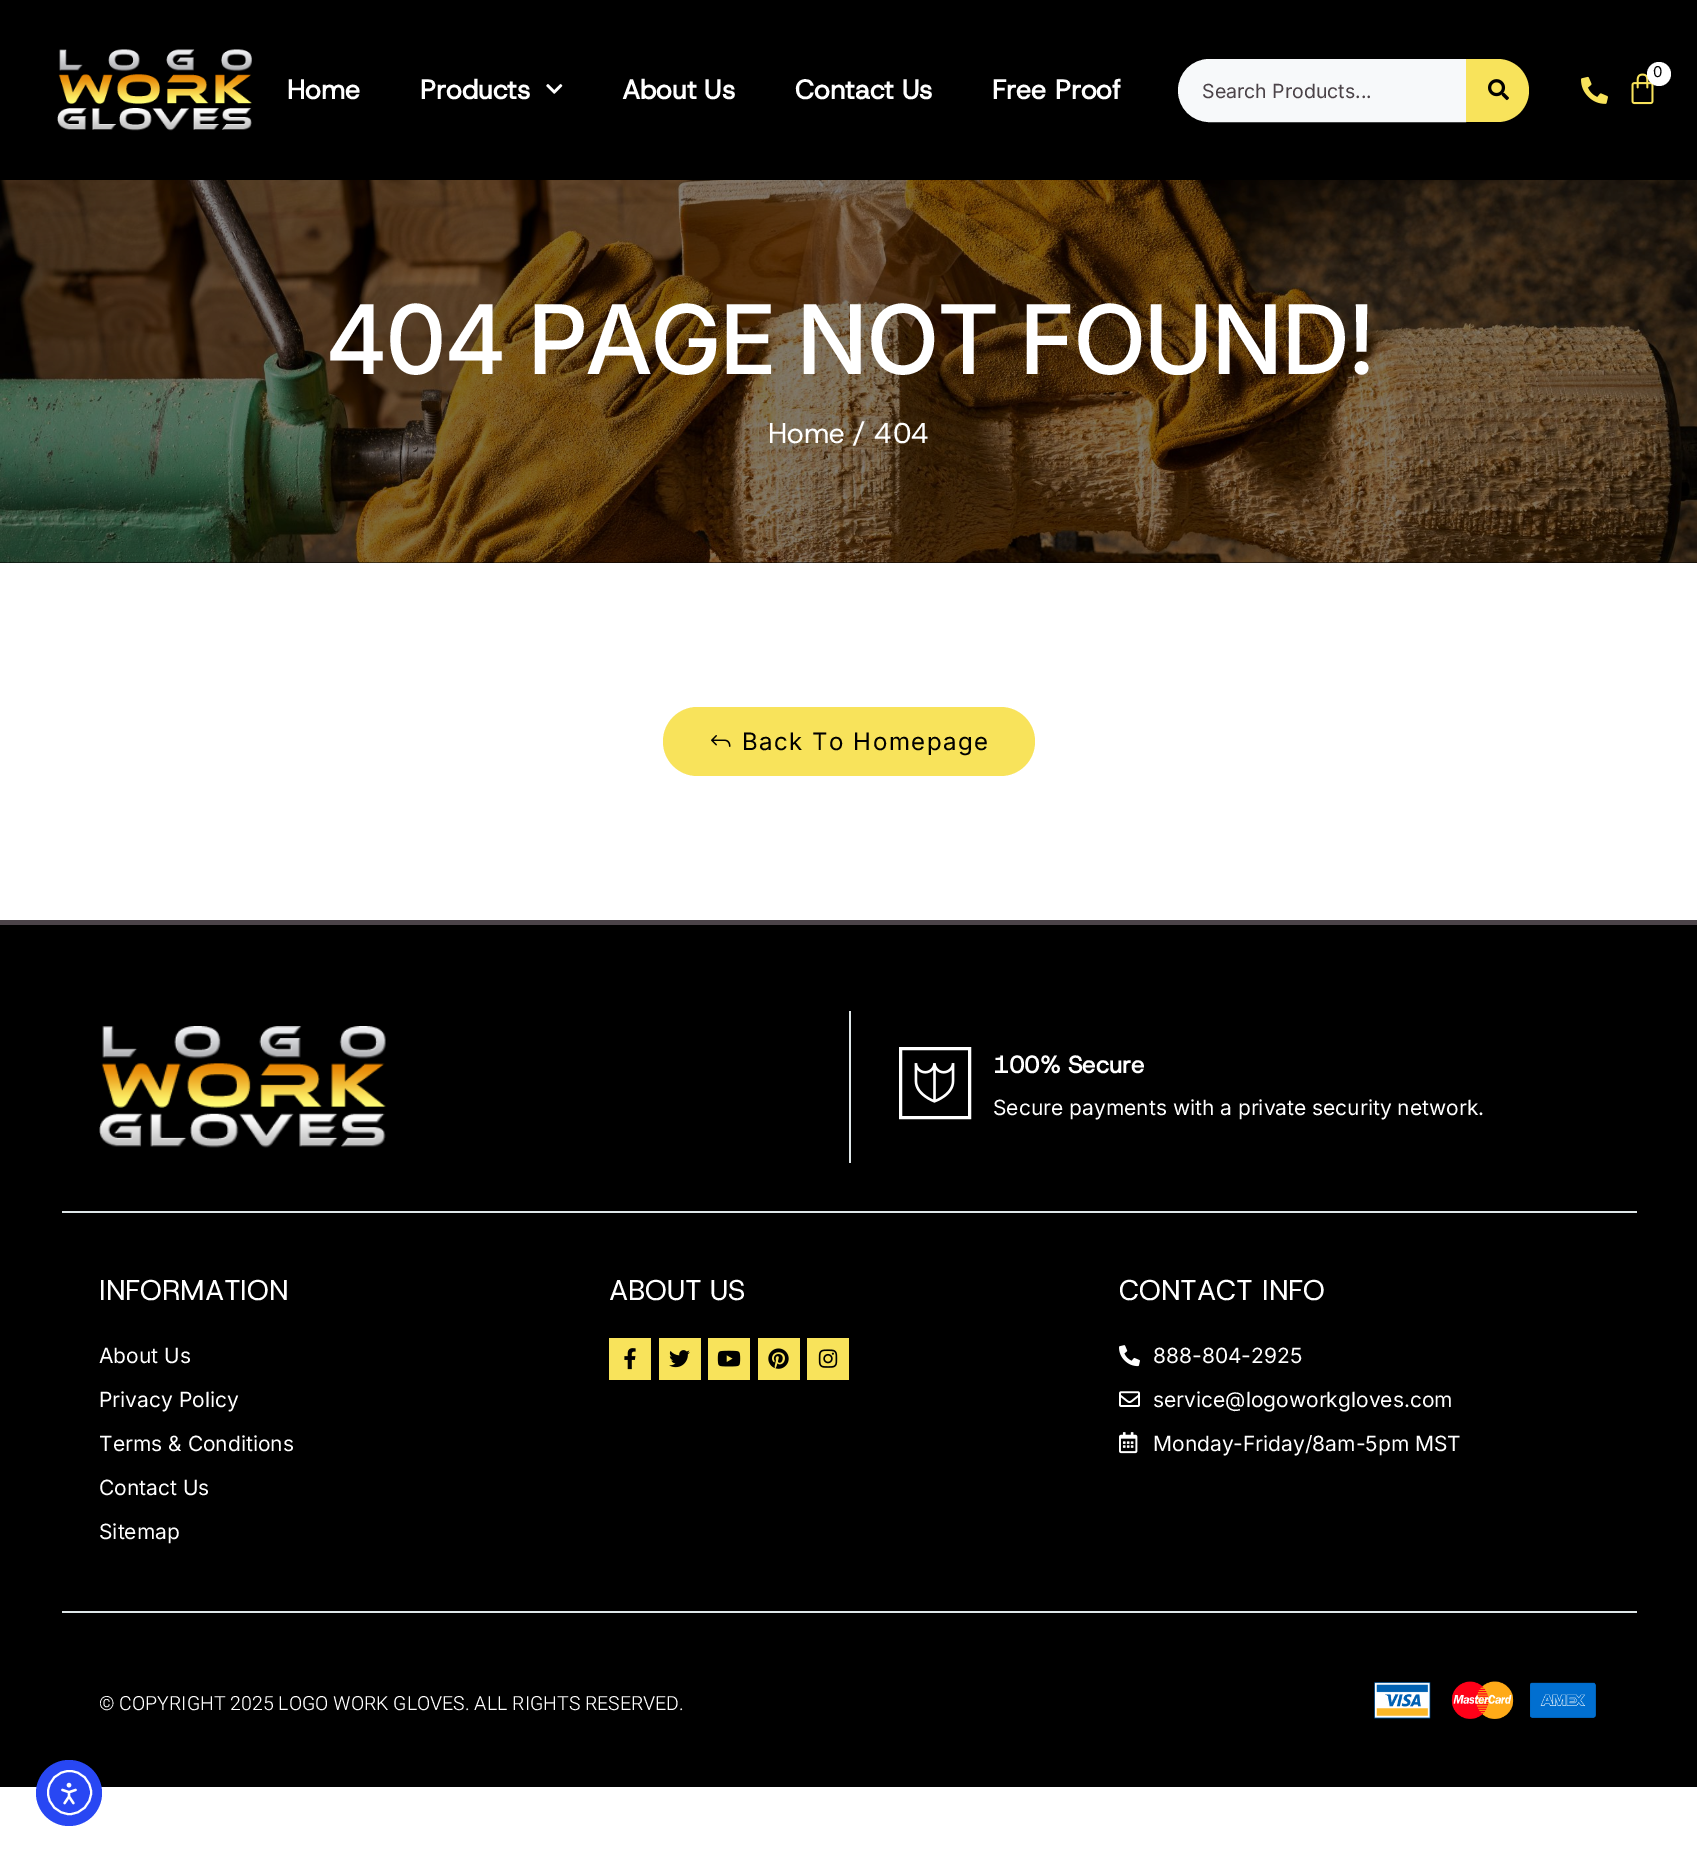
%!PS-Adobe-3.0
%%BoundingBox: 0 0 1697 1861
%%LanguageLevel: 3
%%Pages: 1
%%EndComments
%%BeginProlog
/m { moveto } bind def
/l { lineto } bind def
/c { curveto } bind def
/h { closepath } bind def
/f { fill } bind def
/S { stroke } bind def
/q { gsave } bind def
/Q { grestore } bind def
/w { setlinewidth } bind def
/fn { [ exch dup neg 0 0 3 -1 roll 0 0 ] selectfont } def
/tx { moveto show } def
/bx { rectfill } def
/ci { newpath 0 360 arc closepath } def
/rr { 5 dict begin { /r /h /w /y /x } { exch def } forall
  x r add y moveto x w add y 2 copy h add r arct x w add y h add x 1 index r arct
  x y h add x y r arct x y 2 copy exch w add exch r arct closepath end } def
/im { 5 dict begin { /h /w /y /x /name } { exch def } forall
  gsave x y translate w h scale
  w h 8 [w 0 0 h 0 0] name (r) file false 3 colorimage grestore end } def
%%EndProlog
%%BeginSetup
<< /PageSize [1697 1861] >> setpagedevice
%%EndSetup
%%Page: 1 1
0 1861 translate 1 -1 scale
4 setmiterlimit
1 setgray
0 0 1697 1861 bx
0 setgray
0 0 1697 180 bx
(image0.raw) 57 49 195 82 im
(image1.raw) 1631 73 23 32 im
1 setgray
1659 74 12 ci f
/Inter-Regular 15 fn
0 setgray
1653 77 m 1.5 0 (0) ashow
(image2.raw) 1581 76 27 28 im
/HostGrotesk-Bold 27 fn
1 setgray
(Home) 287 99 tx
(Products) 420 99 tx
(image3.raw) 546 84 17 10 im
(About Us) 622 99 tx
(Contact Us) 795 99 tx
(Free Proof) 992 99 tx
0.969 0.976 0.98 setrgbcolor
1209.5 60 m 1465 60 l 1465 121 l 1209.5 121 l 1192.5 121 1179 107.5 1179 90.5 c 1179 73.5 1192.5 60 1209.5 60 c h q f Q
2 w
S
/Inter-Regular 19.5 fn
0.294 0.263 0.282 setrgbcolor
(Search Products...) 1202 98 tx
0.973 0.89 0.357 setrgbcolor
1466 59 m 1497.5 59 l 1515 59 1529 73 1529 90.5 c 1529 108 1515 122 1497.5 122 c 1466 122 l h f
(image4.raw) 1488 79 21 22 im
0 setgray
0 562 1697 1 bx
(image5.raw) 0 180 1697 383 im
/Inter-Medium 96 fn
1 setgray
325 374 m -3 0 (404 PAGE NOT FOUND!) ashow
/HostGrotesk-Regular 28.5 fn
(Home) 768 443 tx
(/ 404) 852 443 tx
0.973 0.89 0.357 setrgbcolor
663 707 372 69 34.5 rr f
(image6.raw) 711 735 20 12 im
/Inter-Regular 24 fn
0 setgray
742 750 m 1.5 0 (Back To Homepage) ashow
0 925 1697 862 bx
0.294 0.263 0.282 setrgbcolor
0 920 1697 5 bx
(image7.raw) 99 1026 287 122 im
0.871 0.902 0.91 setrgbcolor
849 1011 2 152 bx
1 setgray
3 w
900.5 1048.5 69 69 rectstroke
(image8.raw) 914 1063 41 40 im
/HostGrotesk-Bold 24 fn
(100% Secure) 993 1073 tx
/Inter-Regular 21 fn
(Secure payments with a private security network.) 993 1115 tx
0.871 0.902 0.91 setrgbcolor
62 1211 1575 2 bx
62 1611 1575 2 bx
/HostGrotesk-Regular 28.5 fn
1 setgray
(INFORMATION) 99 1300 tx
/Inter-Regular 21 fn
(About Us) 99 1363 tx
(Privacy Policy) 99 1407 tx
(Terms & Conditions) 99 1451 tx
(Contact Us) 99 1495 tx
(Sitemap) 99 1539 tx
/HostGrotesk-Regular 28.5 fn
(ABOUT US) 609 1300 tx
0.973 0.89 0.357 setrgbcolor
609 1338 42 42 bx
(image9.raw) 624 1348 12 22 im
659 1338 42 42 bx
(image10.raw) 669 1350 21 18 im
708 1338 42 42 bx
(image11.raw) 717 1350 24 17 im
758 1338 42 42 bx
(image12.raw) 768 1348 21 21 im
807 1338 42 42 bx
(image13.raw) 818 1349 20 19 im
1 setgray
(CONTACT INFO) 1119 1300 tx
(image14.raw) 1119 1345 21 22 im
/Inter-Regular 21 fn
(888-804-2925) 1153 1363 tx
(image15.raw) 1119 1391 21 16 im
(service@logoworkgloves.com) 1153 1407 tx
(image16.raw) 1119 1432 19 22 im
(Monday-Friday/8am-5pm MST) 1153 1451 tx
/Heebo-Light 19.5 fn
(© COPYRIGHT 2025 LOGO WORK GLOVES. ALL RIGHTS RESERVED.) 99 1710 tx
(image17.raw) 1374 1682 57 37 im
(image18.raw) 1451 1681 63 38 im
(image19.raw) 1530 1682 66 36 im
0.157 0.278 0.953 setrgbcolor
69 1793 33 ci f
1 setgray
2 w
69.5 1792.5 21.5 ci S
(image20.raw) 61 1782 16 23 im
showpage
%%EOF
